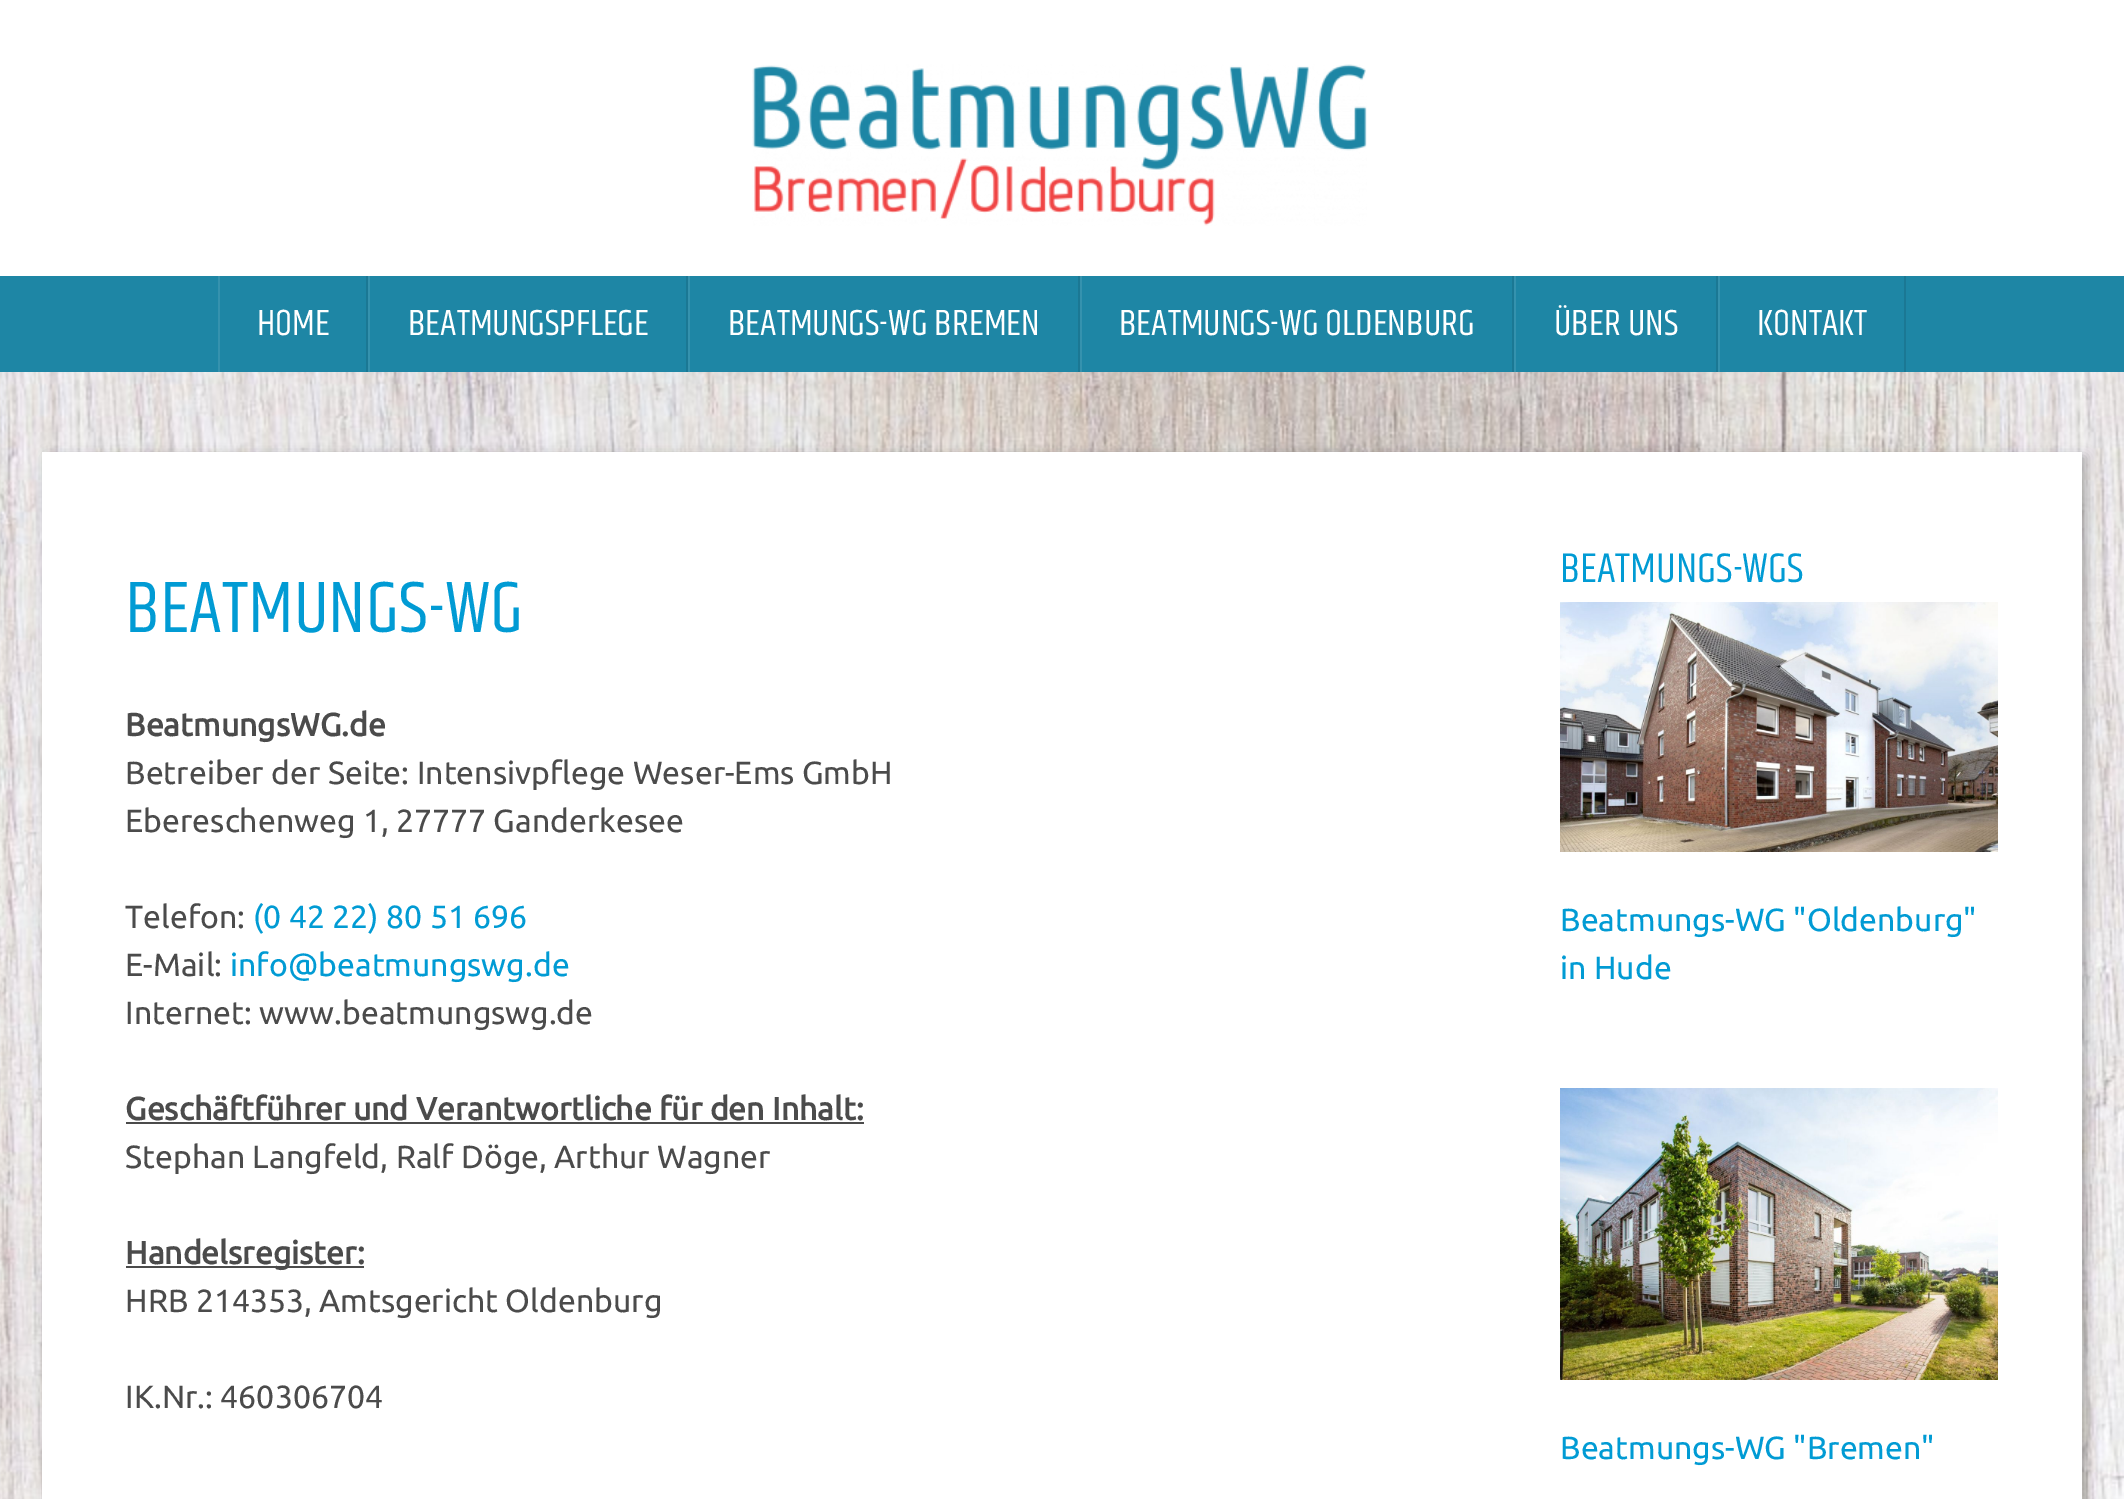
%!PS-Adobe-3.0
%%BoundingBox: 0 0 2124 1499
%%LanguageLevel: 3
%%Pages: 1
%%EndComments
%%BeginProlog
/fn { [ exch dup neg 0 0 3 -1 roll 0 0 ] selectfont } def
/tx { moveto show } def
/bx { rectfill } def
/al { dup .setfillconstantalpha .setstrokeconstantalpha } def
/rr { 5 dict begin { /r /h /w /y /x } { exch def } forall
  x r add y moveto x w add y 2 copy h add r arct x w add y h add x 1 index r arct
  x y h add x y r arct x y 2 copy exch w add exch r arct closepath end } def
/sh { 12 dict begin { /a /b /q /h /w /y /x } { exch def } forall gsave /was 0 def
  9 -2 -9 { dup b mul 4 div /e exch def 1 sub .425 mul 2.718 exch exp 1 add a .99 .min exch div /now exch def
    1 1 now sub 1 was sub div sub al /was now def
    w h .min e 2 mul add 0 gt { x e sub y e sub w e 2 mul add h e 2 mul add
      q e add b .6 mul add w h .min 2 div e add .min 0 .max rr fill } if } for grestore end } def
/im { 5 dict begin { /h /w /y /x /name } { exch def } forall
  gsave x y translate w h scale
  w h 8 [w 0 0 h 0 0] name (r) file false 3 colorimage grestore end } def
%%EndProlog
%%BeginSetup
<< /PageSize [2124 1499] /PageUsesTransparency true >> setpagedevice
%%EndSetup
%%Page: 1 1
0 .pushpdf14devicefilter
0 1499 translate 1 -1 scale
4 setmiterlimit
1 setgray
0 0 2124 1499 bx
(image0.raw) 0 372 2124 1127 im
(image1.raw) 752 64 615 162 im
0.118 0.525 0.647 setrgbcolor
0 276 2124 96 bx
0.106 0.471 0.58 setrgbcolor
366 276 2 96 bx
0.208 0.573 0.682 setrgbcolor
218 276 2 96 bx
/Khand-Regular 37.25 fn
1 setgray
(HOME) 257 335 tx
0.106 0.471 0.58 setrgbcolor
686 276 2 96 bx
0.208 0.573 0.682 setrgbcolor
368 276 2 96 bx
1 setgray
(BEATMUNGSPFLEGE) 408 335 tx
0.106 0.471 0.58 setrgbcolor
1078 276 2 96 bx
0.208 0.573 0.682 setrgbcolor
688 276 2 96 bx
1 setgray
(BEATMUNGS-WG BREMEN) 728 335 tx
0.106 0.471 0.58 setrgbcolor
1512 276 2 96 bx
0.208 0.573 0.682 setrgbcolor
1080 276 2 96 bx
1 setgray
(BEATMUNGS-WG OLDENBURG) 1119 335 tx
0.106 0.471 0.58 setrgbcolor
1716 276 2 96 bx
0.208 0.573 0.682 setrgbcolor
1514 276 2 96 bx
1 setgray
(ÜBER UNS) 1554 335 tx
0.106 0.471 0.58 setrgbcolor
1904 276 2 96 bx
0.208 0.573 0.682 setrgbcolor
1718 276 2 96 bx
1 setgray
(KONTAKT) 1757 335 tx
0 setgray
46 456 2040 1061 0 6 0.3 sh
1 setgray
42 452 2040 1047 bx
/Khand-Regular 74.5 fn
0.004 0.608 0.831 setrgbcolor
(BEATMUNGS-WG) 125 632 tx
/Ubuntu-Bold 32 fn
0.294 setgray
(BeatmungsWG.de) 125 736 tx
/Ubuntu-Regular 32 fn
(Betreiber der Seite: Intensivpflege Weser-Ems GmbH) 125 784 tx
(Ebereschenweg 1, 27777 Ganderkesee) 125 832 tx
(Telefon:) 125 928 tx
0.004 0.608 0.831 setrgbcolor
(\(0 42 22\) 80 51 696) 253 928 tx
0.294 setgray
(E-Mail:) 125 976 tx
0.004 0.608 0.831 setrgbcolor
(info@beatmungswg.de) 230 976 tx
0.294 setgray
(Internet: www.beatmungswg.de) 125 1024 tx
/Ubuntu-Bold 32 fn
(Geschäftführer und Verantwortliche für den Inhalt:) 125 1120 tx
126 1122 738 2 bx
/Ubuntu-Regular 32 fn
(Stephan Langfeld, Ralf Döge, Arthur Wagner) 125 1168 tx
126 1266 238 2 bx
/Ubuntu-Bold 32 fn
(Handelsregister:) 125 1264 tx
/Ubuntu-Regular 32 fn
(HRB 214353, Amtsgericht Oldenburg) 125 1312 tx
(IK.Nr.: 460306704) 125 1408 tx
/Khand-Regular 42.5 fn
0.004 0.608 0.831 setrgbcolor
(BEATMUNGS-WGS) 1560 582 tx
(image2.raw) 1560 602 438 250 im
/Ubuntu-Regular 32 fn
(Beatmungs-WG "Oldenburg") 1560 931 tx
(in Hude) 1560 979 tx
(image3.raw) 1560 1088 438 292 im
(Beatmungs-WG "Bremen") 1560 1459 tx
.poppdf14devicefilter showpage
%%EOF
